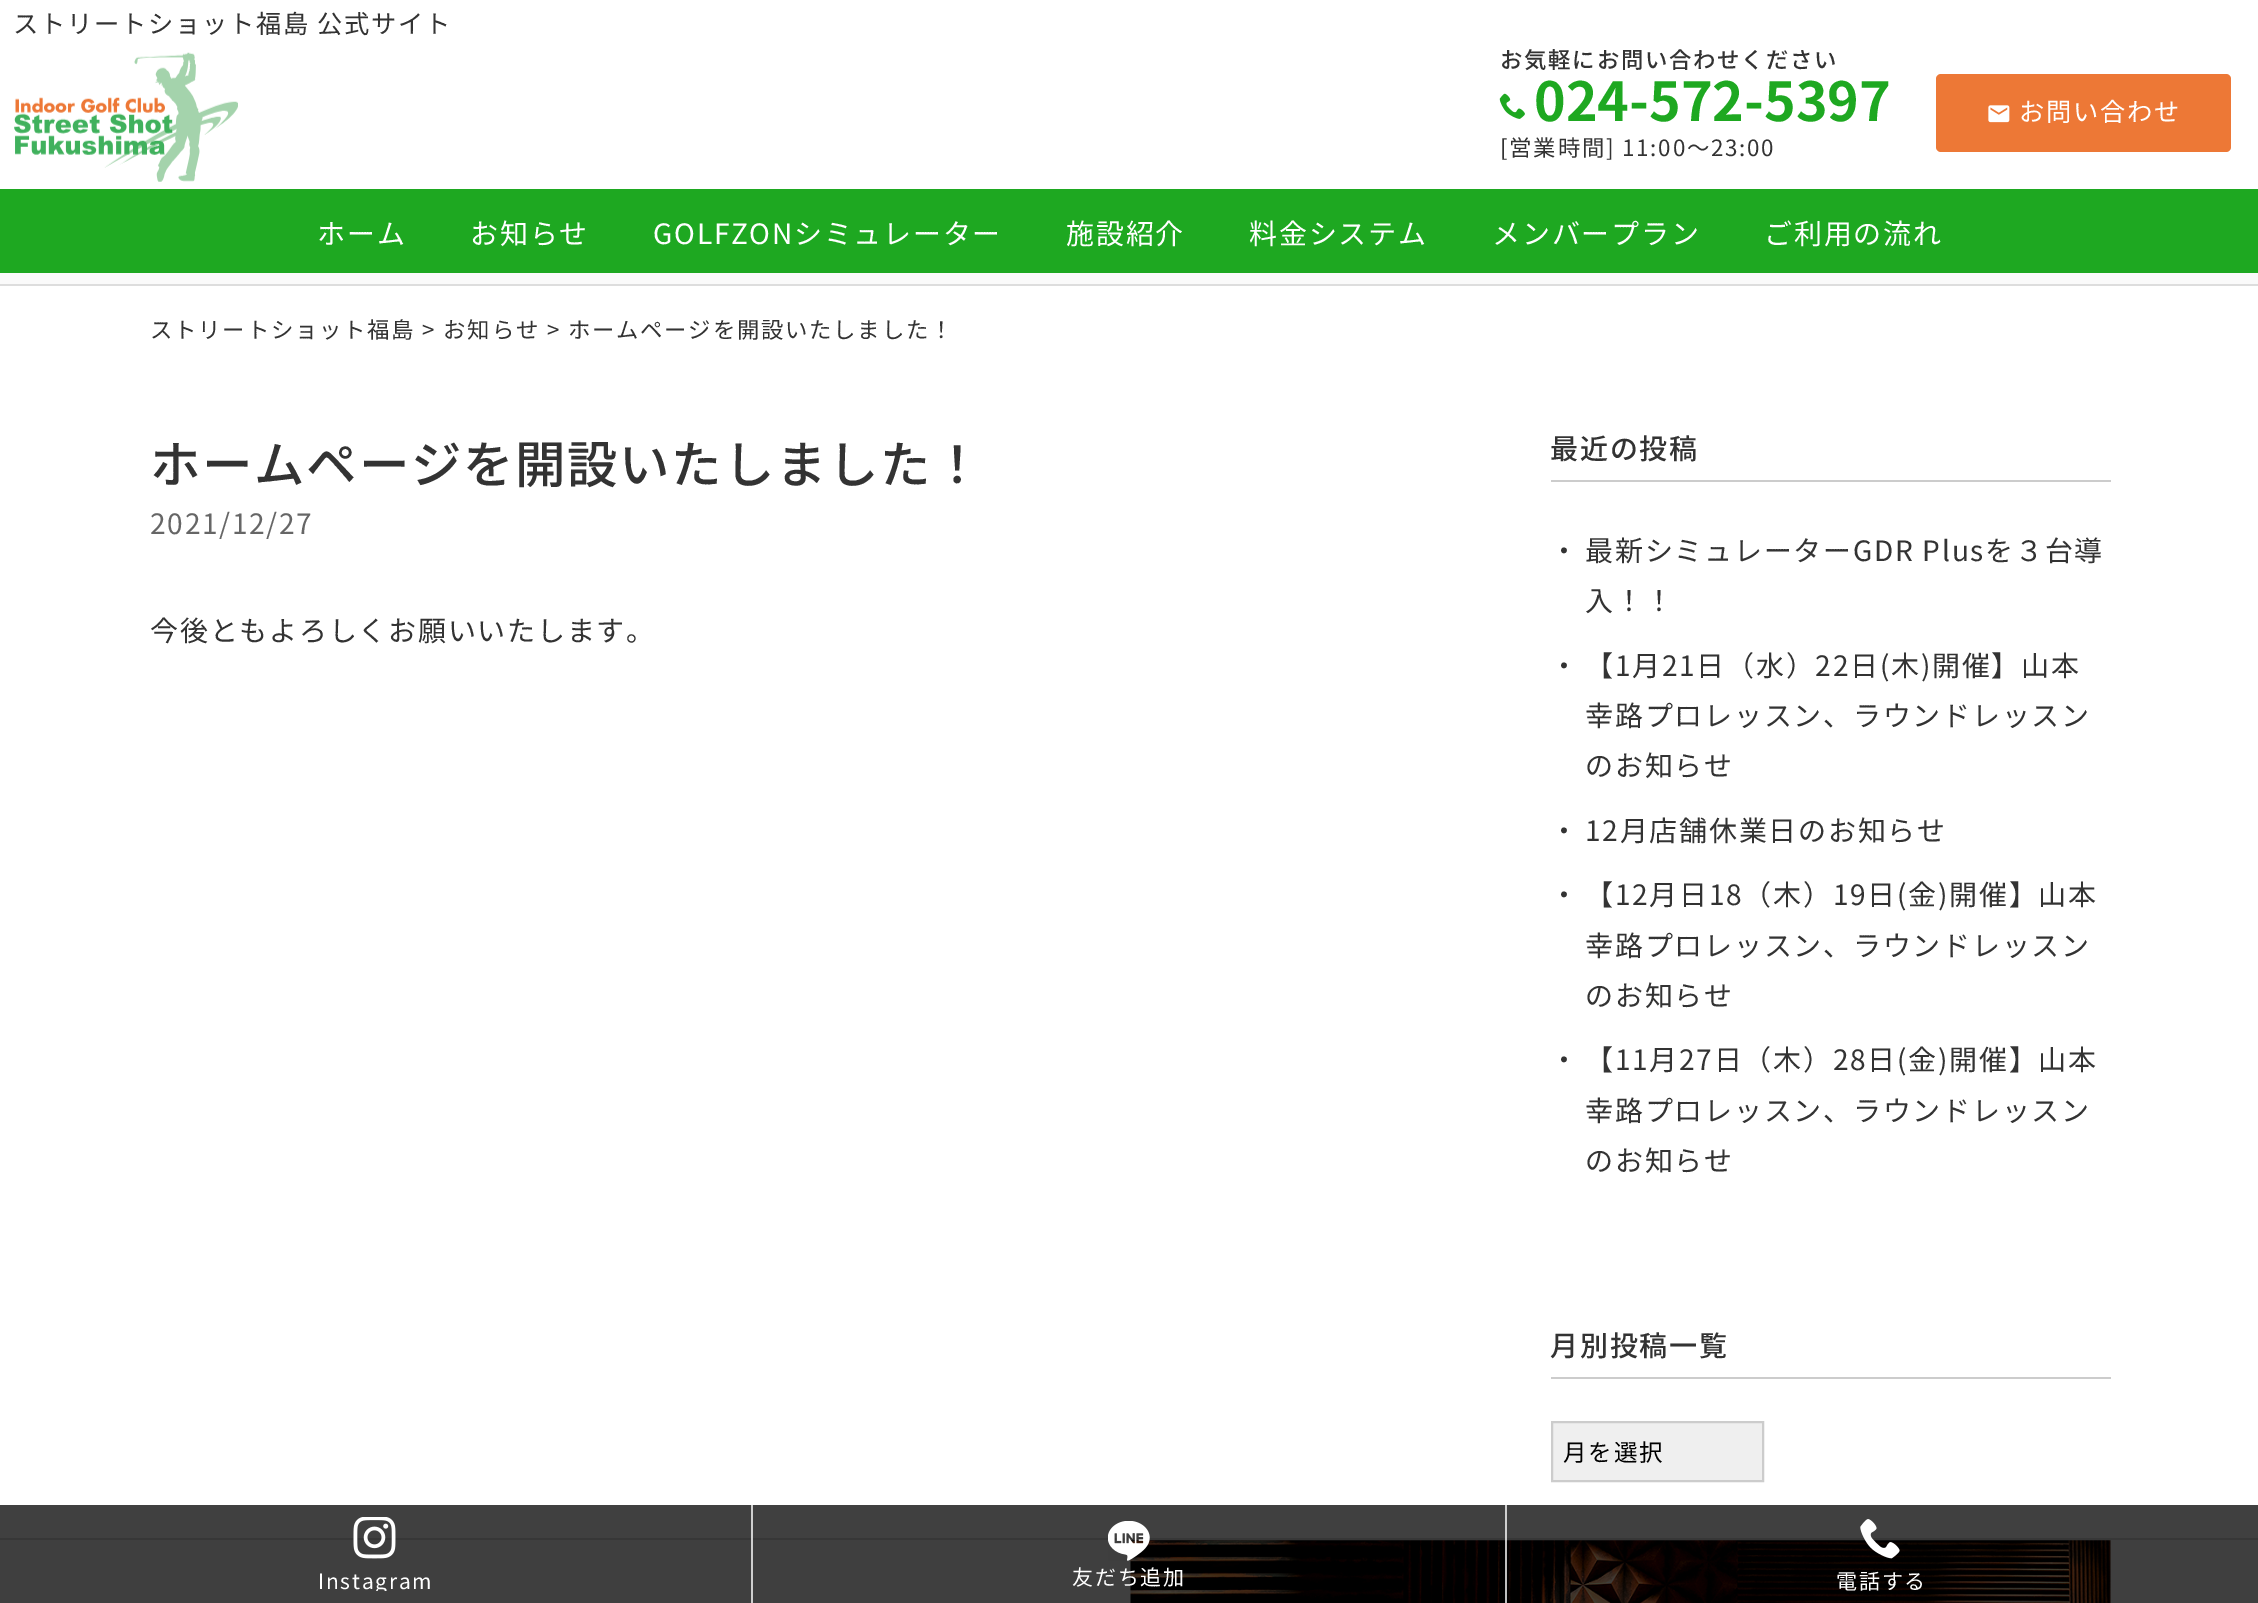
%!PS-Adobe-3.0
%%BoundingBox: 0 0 2258 1603
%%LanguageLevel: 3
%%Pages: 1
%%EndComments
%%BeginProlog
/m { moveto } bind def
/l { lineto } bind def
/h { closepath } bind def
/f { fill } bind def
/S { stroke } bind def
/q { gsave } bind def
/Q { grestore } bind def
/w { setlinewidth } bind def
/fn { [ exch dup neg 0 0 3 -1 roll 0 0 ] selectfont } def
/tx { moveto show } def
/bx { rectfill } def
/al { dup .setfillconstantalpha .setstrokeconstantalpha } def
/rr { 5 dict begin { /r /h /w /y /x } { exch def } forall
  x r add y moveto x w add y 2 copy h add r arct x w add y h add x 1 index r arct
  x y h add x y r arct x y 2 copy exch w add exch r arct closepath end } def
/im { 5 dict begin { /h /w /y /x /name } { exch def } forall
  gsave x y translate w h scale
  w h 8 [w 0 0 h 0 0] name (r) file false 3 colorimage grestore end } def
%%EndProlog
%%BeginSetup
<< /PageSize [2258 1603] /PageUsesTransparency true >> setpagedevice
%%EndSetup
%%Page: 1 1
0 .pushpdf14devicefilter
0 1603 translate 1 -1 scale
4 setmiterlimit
1 setgray
0 0 2258 1603 bx
0.251 setgray
0 1505 2258 33 bx
0.812 setgray
751 1505 2 33 bx
/NotoSansJP-Regular 25.25 fn
0.2 setgray
13 33 m 1.75 0 (ストリートショット福島 公式サイト) ashow
(image0.raw) 14 52 224 130 im
/NotoSansJP-Medium 22.4 fn
1500 68 m 1.75 0 (お気軽にお問い合わせください) ashow
(image1.raw) 1499 93 26 26 im
/NotoSansJP-Bold 53.75 fn
0.118 0.659 0.129 setrgbcolor
(024-572-5397) 1534 121 tx
/NotoSansJP-Regular 22.4 fn
0.2 setgray
1500 156 m 1.75 0 ([営業時間] 11:00～23:00) ashow
0.929 0.471 0.212 setrgbcolor
1936 74 295 78 5 rr f
(image2.raw) 1988 105 22 18 im
/NotoSansJP-Regular 25.25 fn
1 setgray
2019 121 m 1.75 0 (お問い合わせ) ashow
0.118 0.659 0.129 setrgbcolor
0 189 2258 84 bx
/NotoSansJP-Regular 28 fn
1 setgray
317 244 m 1.75 0 (ホーム) ashow
470 244 m 1.75 0 (お知らせ) ashow
653 244 m 1.75 0 (GOLFZONシミュレーター) ashow
1066 244 m 1.75 0 (施設紹介) ashow
1249 244 m 1.75 0 (料金システム) ashow
1492 244 m 1.75 0 (メンバープラン) ashow
1764 244 m 1.75 0 (ご利用の流れ) ashow
0.98 setgray
0 273 2258 11 bx
0.867 setgray
0 284 2258 2 bx
/NotoSansJP-Regular 22.4 fn
0.2 setgray
150 338 m 1.75 0 (ストリートショット福島 > お知らせ > ホームページを開設いたしました！) ashow
/NotoSansJP-Medium 50.4 fn
150 483 m 1.75 0 (ホームページを開設いたしました！) ashow
/NotoSansJP-Regular 28 fn
0.4 setgray
150 534 m 1.75 0 (2021/12/27) ashow
0.2 setgray
150 641 m 1.75 0 (今後ともよろしくお願いいたします。) ashow
0.8 setgray
1551 480 560 2 bx
/NotoSansJP-Medium 28 fn
0.2 setgray
1550 459 m 1.75 0 (最近の投稿) ashow
/NotoSansJP-Regular 28 fn
1550 561 m 1.75 0 (・) ashow
1585 561 m 1.75 0 (最新シミュレーターGDR Plusを３台導) ashow
1585 611 m 1.75 0 (入！！) ashow
1550 676 m 1.75 0 (・) ashow
1585 676 m 1.75 0 (【1月21日（水）22日\(木\)開催】山本) ashow
1585 726 m 1.75 0 (幸路プロレッスン、ラウンドレッスン) ashow
1585 776 m 1.75 0 (のお知らせ) ashow
1550 841 m 1.75 0 (・) ashow
1585 841 m 1.75 0 (12月店舗休業日のお知らせ) ashow
1550 905 m 1.75 0 (・) ashow
1585 905 m 1.75 0 (【12月日18（木）19日\(金\)開催】山本) ashow
1585 956 m 1.75 0 (幸路プロレッスン、ラウンドレッスン) ashow
1585 1006 m 1.75 0 (のお知らせ) ashow
1550 1070 m 1.75 0 (・) ashow
1585 1070 m 1.75 0 (【11月27日（木）28日\(金\)開催】山本) ashow
1585 1121 m 1.75 0 (幸路プロレッスン、ラウンドレッスン) ashow
1585 1171 m 1.75 0 (のお知らせ) ashow
0.8 setgray
1551 1377 560 2 bx
/NotoSansJP-Medium 28 fn
0.2 setgray
1550 1356 m 1.75 0 (月別投稿一覧) ashow
0.937 setgray
1552 1422 m 1763 1422 l 1763 1481 l 1552 1481 l h q f Q
0.8 setgray
2 w
S
/NotoSansJP-Regular 23.5 fn
0 setgray
1563 1461 m 1.75 0 (月を選択) ashow
0.247 setgray
0 1540 2258 63 bx
0.812 setgray
751 1538 2 65 bx
0.216 setgray
0 1538 2258 2 bx
0.804 setgray
751 1538 2 2 bx
(image3.raw) 1130 1540 981 63 im
(image4.raw) 353 1517 43 42 im
q
0 1517 751 74 rectclip
/NotoSansJP-Regular 21 fn
1 setgray
318 1589 m 1.75 0 (Instagram) ashow
Q
0.75 al
1 setgray
1505 1505 2 98 bx
1 al
(image5.raw) 1108 1521 42 40 im
/NotoSansJP-Regular 21 fn
1072 1585 m 1.75 0 (友だち追加) ashow
(image6.raw) 1860 1519 40 40 im
1836 1589 m 1.75 0 (電話する) ashow
.poppdf14devicefilter showpage
%%EOF
